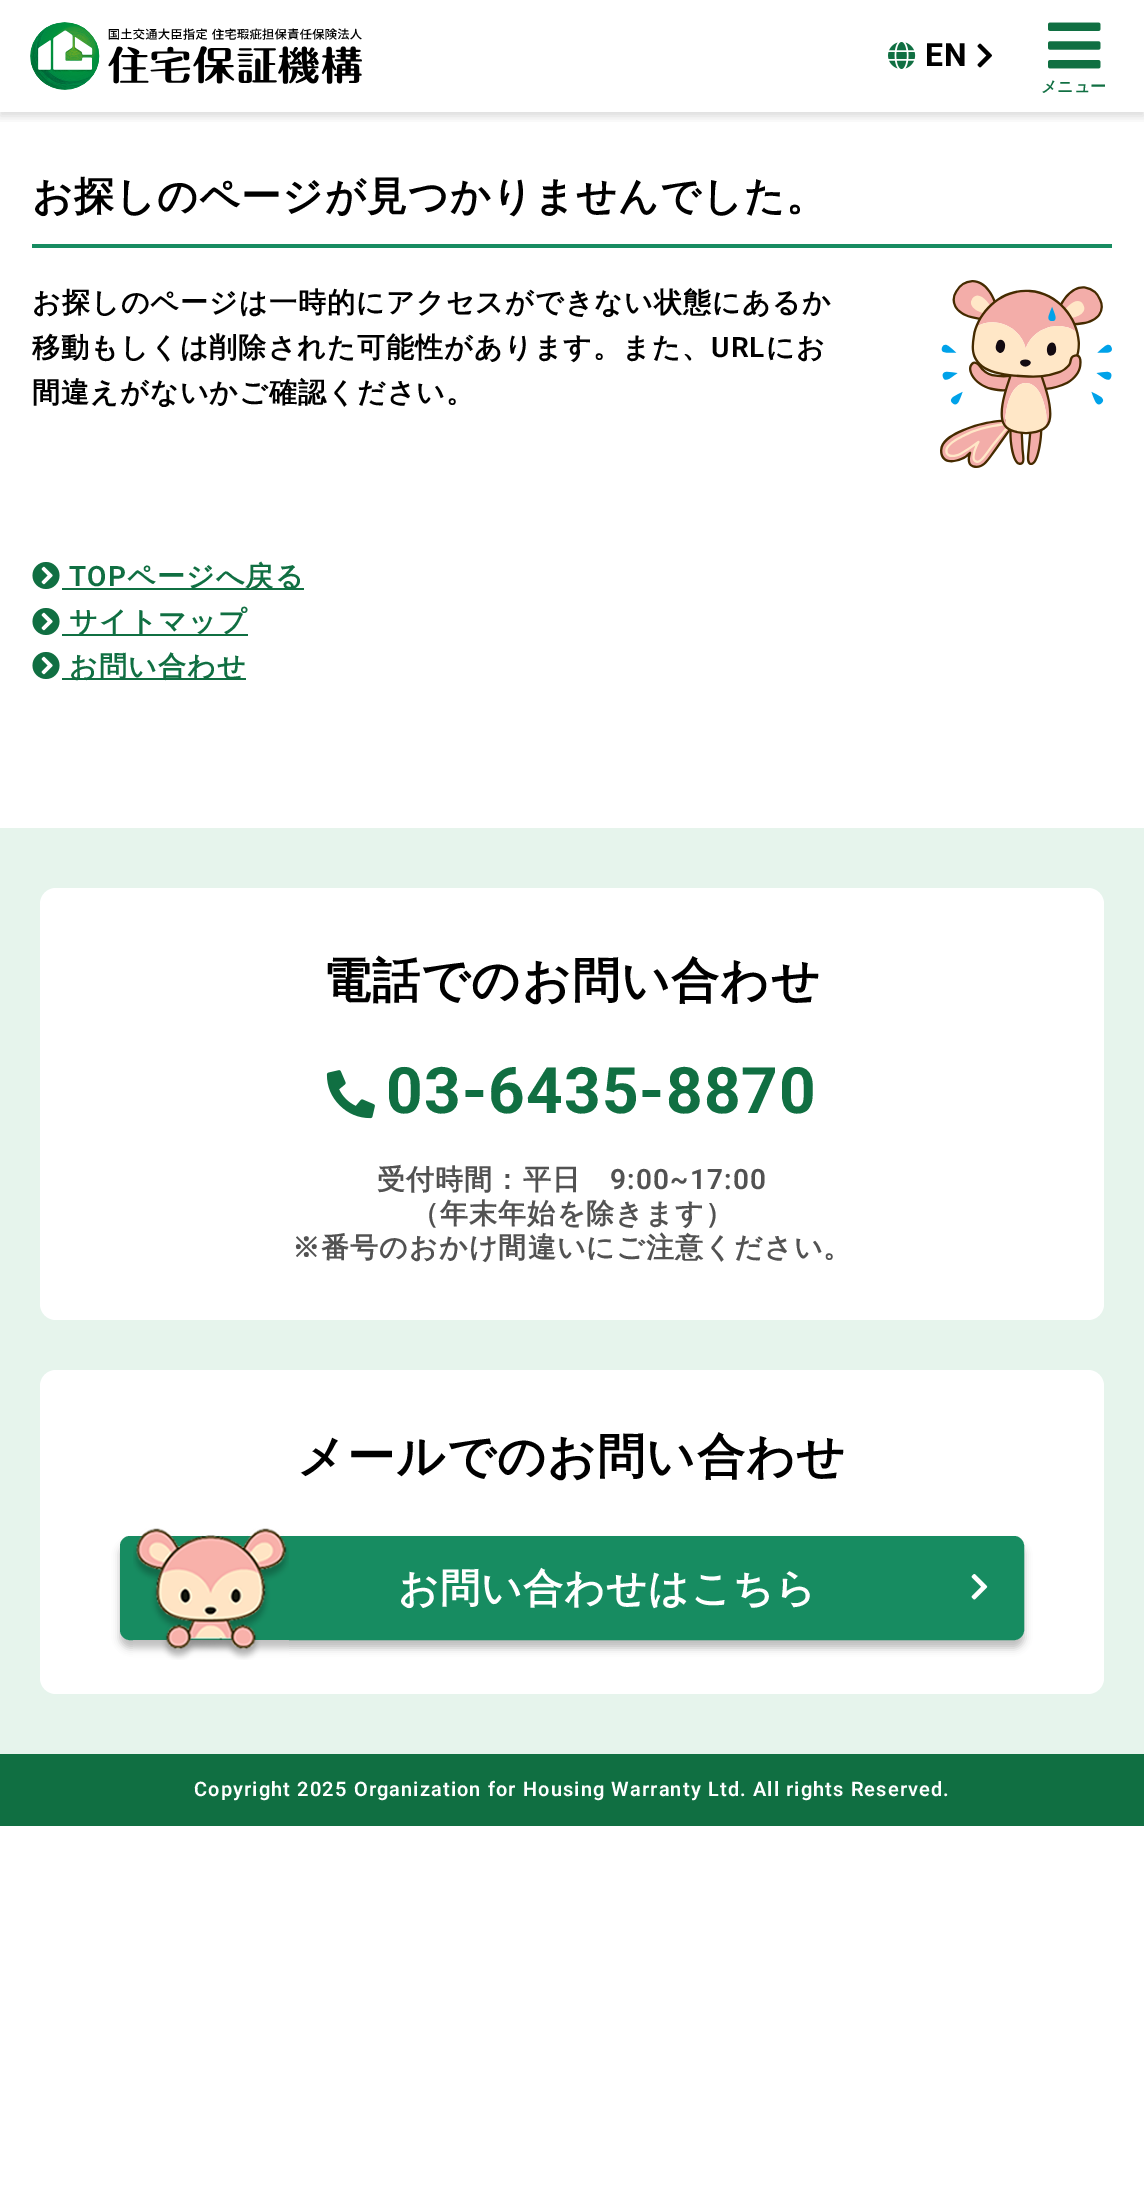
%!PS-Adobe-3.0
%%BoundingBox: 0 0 1144 2210
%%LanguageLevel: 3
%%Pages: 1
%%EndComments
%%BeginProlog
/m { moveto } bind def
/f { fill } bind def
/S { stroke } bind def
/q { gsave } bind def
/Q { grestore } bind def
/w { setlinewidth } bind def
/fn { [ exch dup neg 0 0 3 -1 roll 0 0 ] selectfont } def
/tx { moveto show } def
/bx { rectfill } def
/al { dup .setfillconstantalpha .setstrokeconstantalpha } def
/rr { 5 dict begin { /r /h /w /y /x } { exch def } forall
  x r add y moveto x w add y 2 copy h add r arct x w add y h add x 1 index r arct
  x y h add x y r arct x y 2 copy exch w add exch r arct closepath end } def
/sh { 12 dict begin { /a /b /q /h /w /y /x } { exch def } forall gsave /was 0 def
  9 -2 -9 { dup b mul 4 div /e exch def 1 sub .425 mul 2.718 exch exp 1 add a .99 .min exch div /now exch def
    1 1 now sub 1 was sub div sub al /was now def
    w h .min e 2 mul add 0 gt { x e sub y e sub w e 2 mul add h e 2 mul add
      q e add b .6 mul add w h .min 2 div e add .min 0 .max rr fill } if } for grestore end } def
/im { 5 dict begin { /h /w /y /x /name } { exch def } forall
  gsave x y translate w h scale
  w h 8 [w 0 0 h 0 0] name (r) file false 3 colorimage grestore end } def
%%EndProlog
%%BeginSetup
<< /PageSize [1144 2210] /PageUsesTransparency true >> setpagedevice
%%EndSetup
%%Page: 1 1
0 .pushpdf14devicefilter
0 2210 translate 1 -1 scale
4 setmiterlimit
1 setgray
0 0 1144 2210 bx
q
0 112 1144 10 rectclip
0 setgray
0 4 1144 112 0 5 0.15 sh
Q
(image0.raw) 30 22 332 68 im
(image1.raw) 888 42 28 27 im
/Roboto-Bold 32 fn
0 setgray
925 66 m 1.12 0 (EN) ashow
(image2.raw) 977 43 15 25 im
(image3.raw) 1048 22 53 47 im
/WenQuanYiZenHei-Bold 16 fn
0.063 0.435 0.259 setrgbcolor
(メニュー) 1041 92 tx
0.09 0.549 0.38 setrgbcolor
32 244 1080 4 bx
/WenQuanYiZenHei-Bold 40 fn
0 setgray
32 210 m 1.12 0 (お探しのページが見つかりませんでした。) ashow
(image4.raw) 940 280 172 188 im
/WenQuanYiZenHei-Bold 28 fn
32 312 m 1.12 0 (お探しのページは一時的にアクセスができない状態にあるか) ashow
32 357 m 1.12 0 (移動もしくは削除された可能性があります。また、) ashow
/Roboto-SemiBold 28 fn
711 357 m 1.12 0 (URL) ashow
/WenQuanYiZenHei-Bold 28 fn
766 357 m 1.12 0 (にお) ashow
32 402 m 1.12 0 (間違えがないかご確認ください。) ashow
(image5.raw) 32 562 28 27 im
/Roboto-SemiBold 28 fn
0.063 0.435 0.259 setrgbcolor
69 586 m 1.12 0 (TOP) ashow
62 588 242 2 bx
/WenQuanYiZenHei-Bold 28 fn
127 586 m 1.12 0 (ページへ戻る) ashow
(image5.raw) 32 608 28 27 im
62 634 186 2 bx
69 631 m 1.12 0 (サイトマップ) ashow
(image5.raw) 32 652 28 27 im
62 678 184 2 bx
69 676 m 1.12 0 (お問い合わせ) ashow
0.902 0.957 0.925 setrgbcolor
0 828 1144 926 bx
1 setgray
40 888 1064 432 16 rr f
/WenQuanYiZenHei-Bold 48 fn
0 setgray
323 997 m 1.12 0 (電話でのお問い合わせ) ashow
(image6.raw) 326 1070 49 49 im
/Roboto-Bold 64 fn
0.063 0.435 0.259 setrgbcolor
386 1113 m 1.12 0 (03-6435-8870) ashow
/WenQuanYiZenHei-Bold 28 fn
0.322 setgray
377 1189 m 1.12 0 (受付時間：平日) ashow
/Roboto-SemiBold 28 fn
610 1189 m 1.12 0 (9:00~17:00) ashow
/WenQuanYiZenHei-Bold 28 fn
411 1223 m 1.12 0 (（年末年始を除きます）) ashow
292 1257 m 1.12 0 (※番号のおかけ間違いにご注意ください。) ashow
1 setgray
40 1370 1064 324 16 rr f
/WenQuanYiZenHei-Bold 48 fn
0 setgray
297 1473 m 1.12 0 (メールでのお問い合わせ) ashow
120 1544 904 104 10 4 0.25 sh
0.09 0.549 0.38 setrgbcolor
122 1538 900 100 8 rr q f Q
4 w
S
(image7.raw) 133 1528 156 132 im
/WenQuanYiZenHei-Bold 40 fn
1 setgray
398 1602 m 1.12 0 (お問い合わせはこちら) ashow
(image8.raw) 971 1574 17 26 im
0.063 0.435 0.259 setrgbcolor
0 1754 1144 72 bx
/Roboto-SemiBold 20 fn
1 setgray
194 1796 m 1.12 0 (Copyright 2025 Organization for Housing Warranty Ltd. All rights Reserved.) ashow
.poppdf14devicefilter showpage
%%EOF
